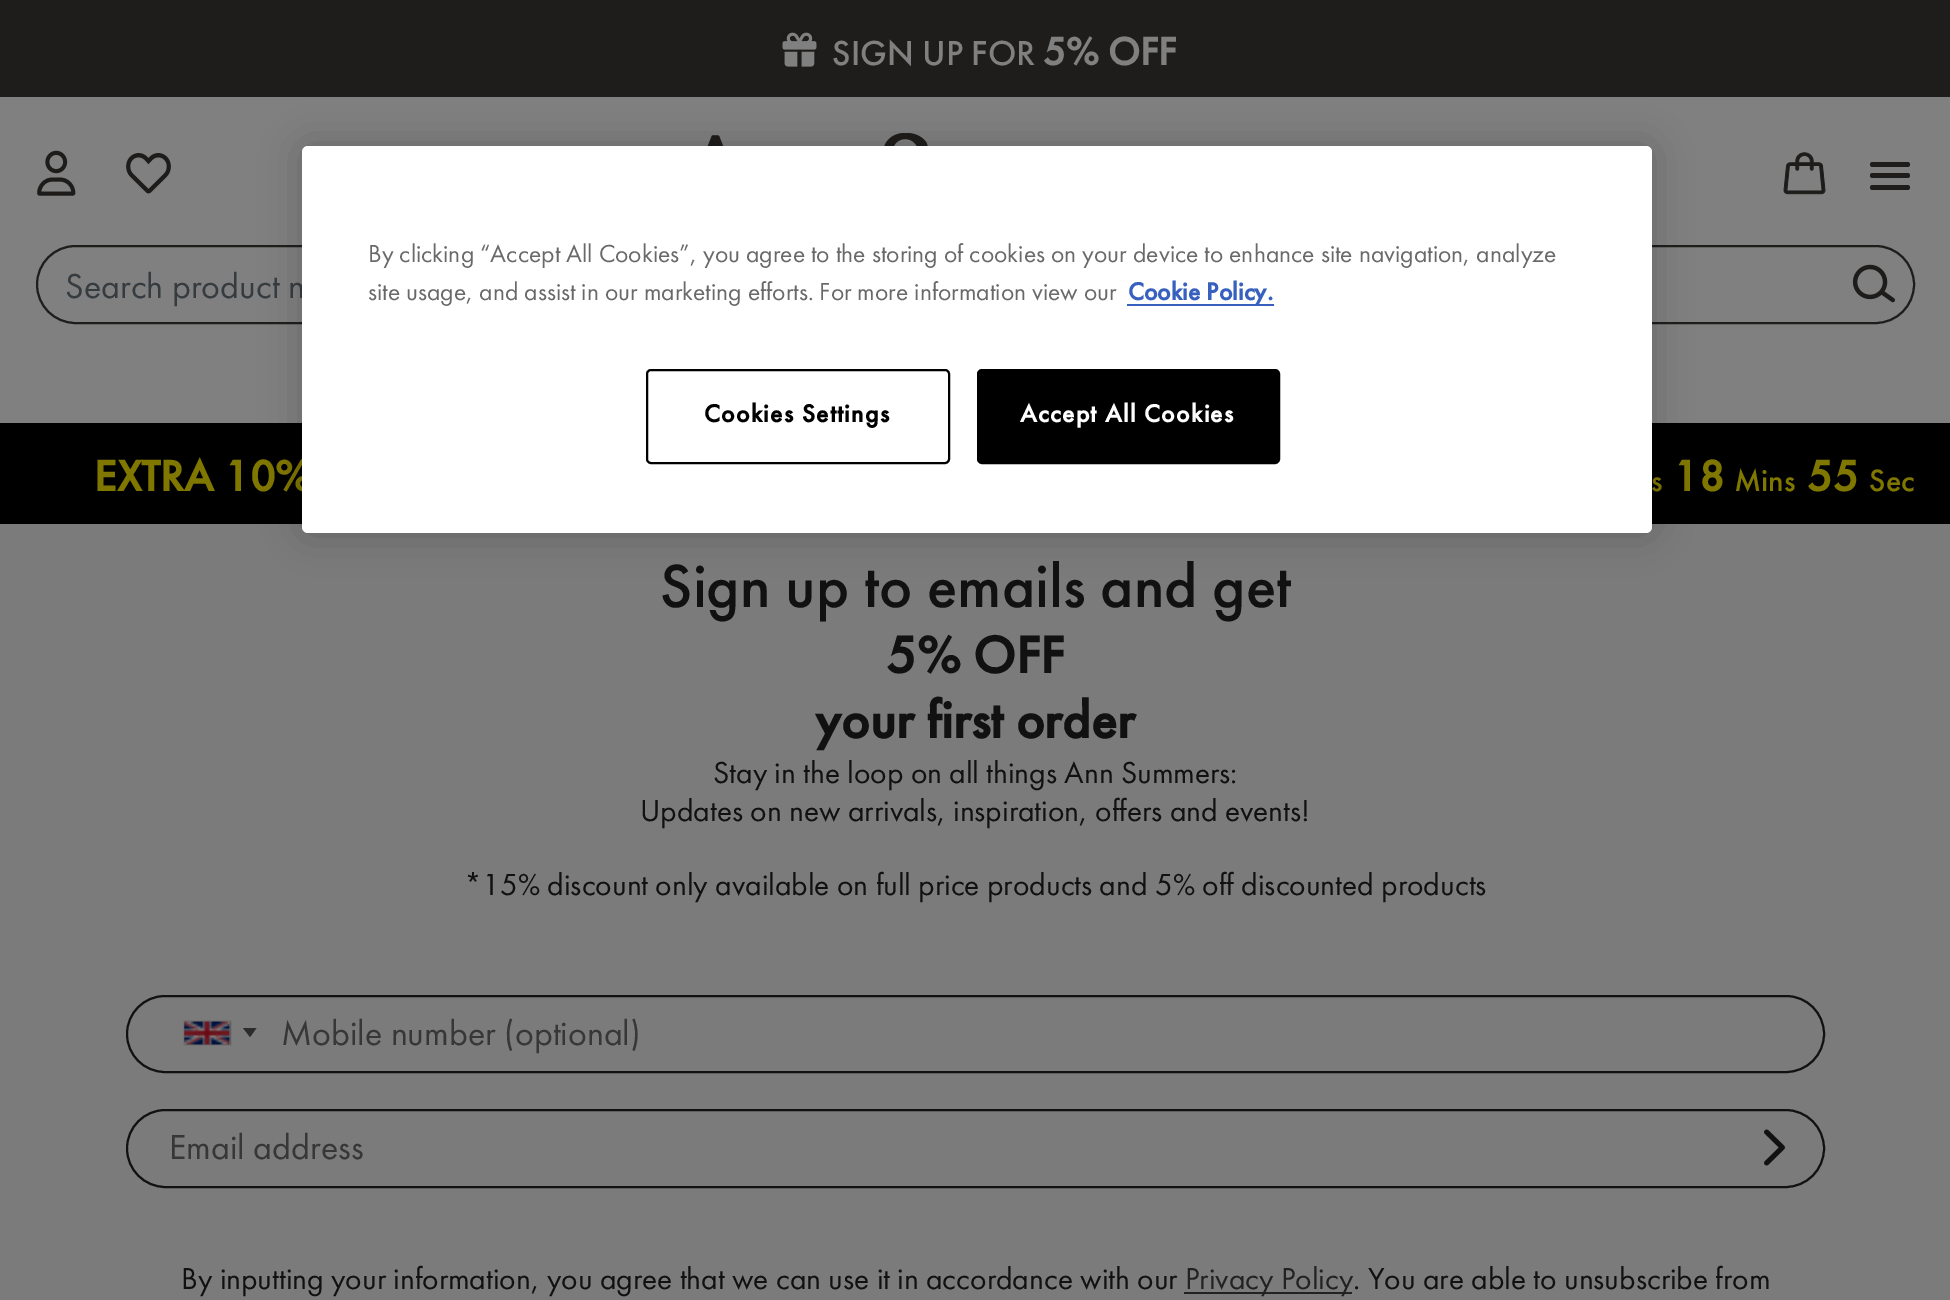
%!PS-Adobe-3.0
%%BoundingBox: 0 0 1950 1300
%%LanguageLevel: 3
%%Pages: 1
%%EndComments
%%BeginProlog
/m { moveto } bind def
/l { lineto } bind def
/h { closepath } bind def
/f { fill } bind def
/S { stroke } bind def
/q { gsave } bind def
/Q { grestore } bind def
/w { setlinewidth } bind def
/fn { [ exch dup neg 0 0 3 -1 roll 0 0 ] selectfont } def
/tx { moveto show } def
/bx { rectfill } def
/al { dup .setfillconstantalpha .setstrokeconstantalpha } def
/rr { 5 dict begin { /r /h /w /y /x } { exch def } forall
  x r add y moveto x w add y 2 copy h add r arct x w add y h add x 1 index r arct
  x y h add x y r arct x y 2 copy exch w add exch r arct closepath end } def
/sh { 12 dict begin { /a /b /q /h /w /y /x } { exch def } forall gsave /was 0 def
  9 -2 -9 { dup b mul 4 div /e exch def 1 sub .425 mul 2.718 exch exp 1 add a .99 .min exch div /now exch def
    1 1 now sub 1 was sub div sub al /was now def
    w h .min e 2 mul add 0 gt { x e sub y e sub w e 2 mul add h e 2 mul add
      q e add b .6 mul add w h .min 2 div e add .min 0 .max rr fill } if } for grestore end } def
/im { 5 dict begin { /h /w /y /x /name } { exch def } forall
  gsave x y translate w h scale
  w h 8 [w 0 0 h 0 0] name (r) file false 3 colorimage grestore end } def
%%EndProlog
%%BeginSetup
<< /PageSize [1950 1300] /PageUsesTransparency true >> setpagedevice
%%EndSetup
%%Page: 1 1
0 .pushpdf14devicefilter
0 1300 translate 1 -1 scale
4 setmiterlimit
0.482 setgray
0 0 1950 1300 bx
0.502 setgray
0 97 1950 326 bx
0.118 0.114 0.106 setrgbcolor
0 0 1950 97 bx
(image0.raw) 782 32 35 35 im
/FuturaPT-Medium 36 fn
0.502 setgray
(SIGN UP FOR) 832 65 tx
/FuturaPT-Bold 40.5 fn
(5% OFF) 1043 65 tx
(image1.raw) 707 133 221 13 im
(image2.raw) 37 150 39 46 im
(image3.raw) 126 153 45 41 im
(image4.raw) 1783 152 43 43 im
0.118 0.114 0.106 setrgbcolor
1870 162 40 5 2.5 rr f
1870 173 40 5 2.5 rr f
1870 185 40 5 2.5 rr f
2 w
37 246 1877 77 38.5 rr S
/FuturaPT-Regular 36 fn
0.212 0.231 0.247 setrgbcolor
(Search product n) 65 298 tx
(image5.raw) 1852 264 43 39 im
0 setgray
0 423 1950 101 bx
/FuturaPT-Bold 45 fn
0.502 0.467 0 setrgbcolor
(EXTRA 10%) 94 491 tx
/FuturaPT-Medium 32 fn
(s) 1651 491 tx
/FuturaPT-Bold 45 fn
(18) 1673 491 tx
/FuturaPT-Medium 32 fn
(Mins) 1734 491 tx
/FuturaPT-Bold 45 fn
(55) 1807 491 tx
/FuturaPT-Medium 32 fn
(Sec) 1869 491 tx
/FuturaPT-Medium 63 fn
0.067 setgray
(Sign up to emails and get) 660 607 tx
/FuturaPT-Bold 54 fn
(5% OFF) 886 673 tx
(your first order) 815 738 tx
/FuturaPT-Regular 31.5 fn
(Stay in the loop on all things Ann Summers:) 713 783 tx
(Updates on new arrivals, inspiration, offers and events!) 640 821 tx
(*15% discount only available on full price products and 5% off discounted products) 464 895 tx
127 996 1697 76 38 rr S
0.267 setgray
185 1022 45 22 0 1 1 sh
(image6.raw) 184 1021 46 24 im
185 1022 45 22 0 1 1 sh
0.431 setgray
229 1022 1 22 bx
(image7.raw) 184 1021 46 24 im
0.169 setgray
243 1028 m 256.5 1028 l 250 1037 l h f
/FuturaPT-Regular 36 fn
0.22 0.216 0.216 setrgbcolor
(Mobile number \(optional\)) 281 1045 tx
0.067 setgray
127 1110 1697 77 38.5 rr S
0.22 0.216 0.216 setrgbcolor
(Email address) 169 1159 tx
(image8.raw) 1764 1129 21 37 im
/FuturaPT-Regular 31.5 fn
0.067 setgray
(By inputting your information, you agree that we can use it in accordance with our) 181 1289 tx
0.133 setgray
1184 1292 168 2 bx
(Privacy Policy) 1185 1289 tx
0.067 setgray
(. You are able to unsubscribe from) 1353 1289 tx
0 setgray
302 146 1350 387 6 20 0.2 sh
1 setgray
302 146 1350 387 6 rr f
/FuturaPT-Regular 25.6 fn
0.412 setgray
(By clicking “Accept All Cookies”, you agree to the storing of cookies on your device to enhance site navigation, analyze) 368 262 tx
(site usage, and assist in our marketing efforts. For more information view our) 368 300 tx
0.22 0.376 0.745 setrgbcolor
1127 304 147 2 bx
/FuturaPT-Bold 25.6 fn
(Cookie Policy.) 1128 300 tx
0 setgray
647 370 302 93 4 rr S
704 422 m 1.25 0 (Cookies Settings) ashow
978 370 301 93 4 rr q f Q
S
1 setgray
1020 422 m 1.25 0 (Accept All Cookies) ashow
.poppdf14devicefilter showpage
%%EOF
